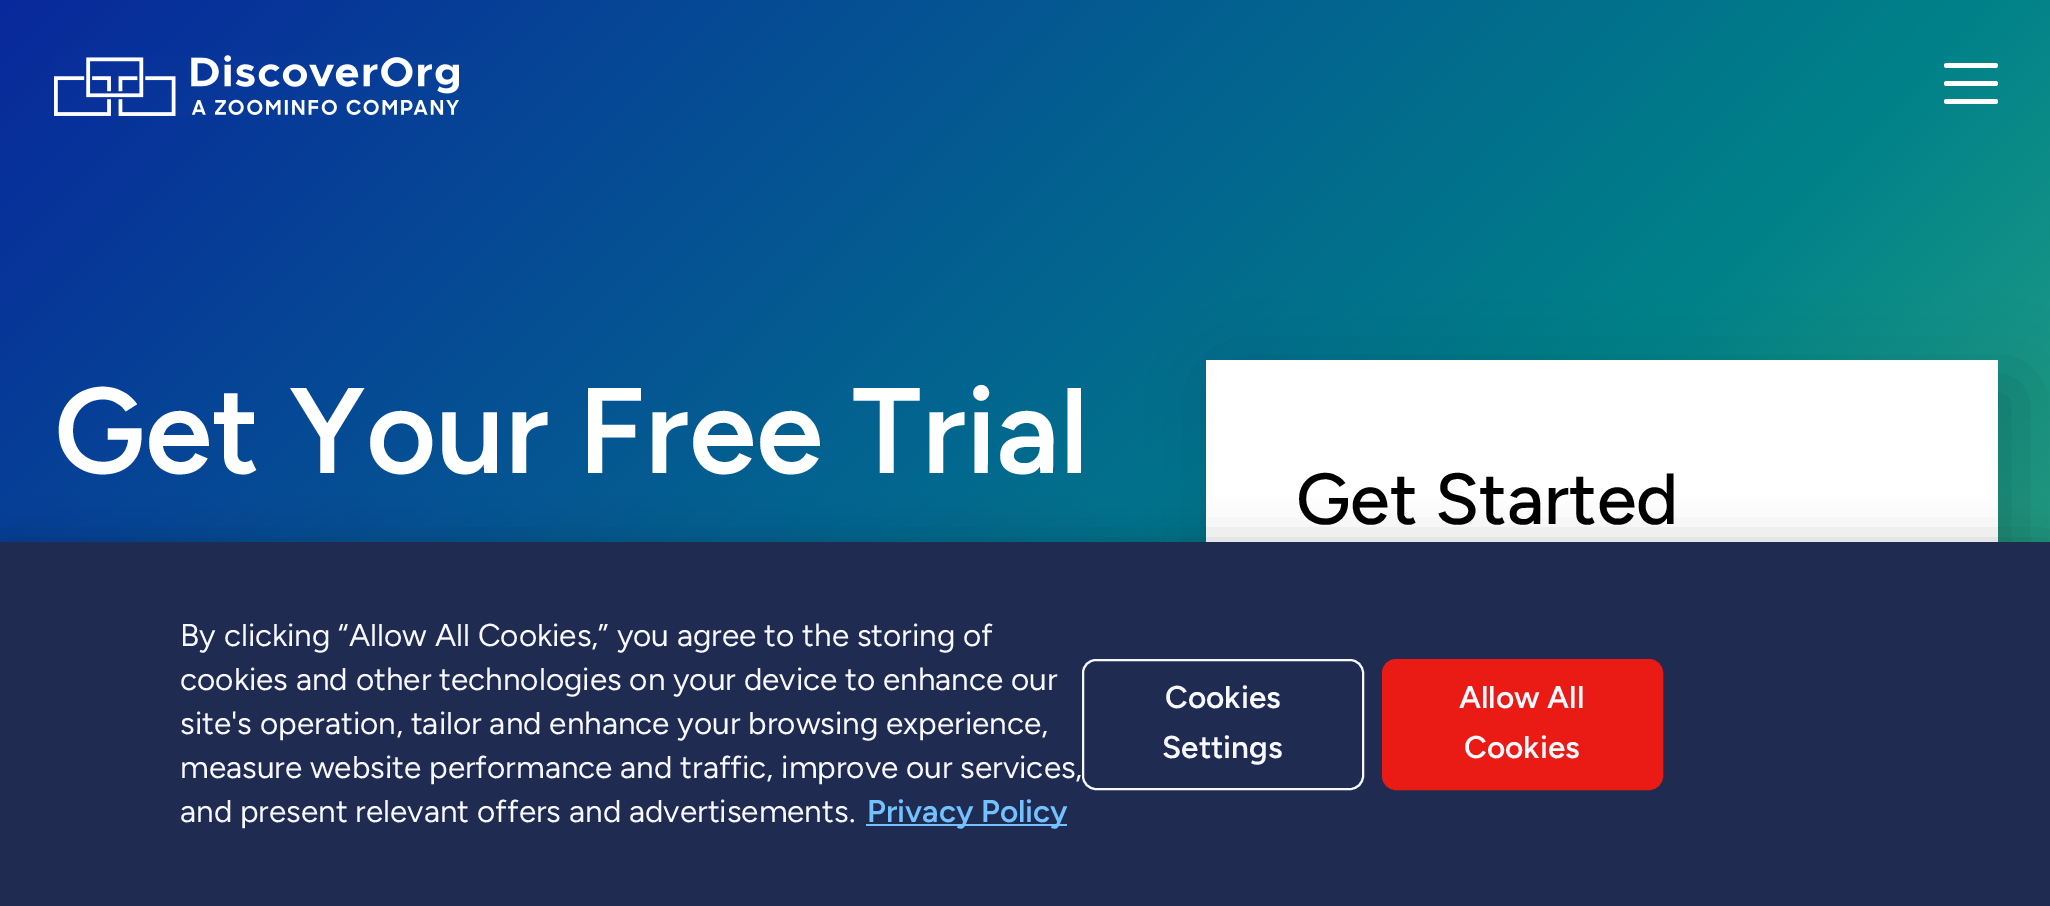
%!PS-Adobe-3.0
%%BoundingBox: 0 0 2050 906
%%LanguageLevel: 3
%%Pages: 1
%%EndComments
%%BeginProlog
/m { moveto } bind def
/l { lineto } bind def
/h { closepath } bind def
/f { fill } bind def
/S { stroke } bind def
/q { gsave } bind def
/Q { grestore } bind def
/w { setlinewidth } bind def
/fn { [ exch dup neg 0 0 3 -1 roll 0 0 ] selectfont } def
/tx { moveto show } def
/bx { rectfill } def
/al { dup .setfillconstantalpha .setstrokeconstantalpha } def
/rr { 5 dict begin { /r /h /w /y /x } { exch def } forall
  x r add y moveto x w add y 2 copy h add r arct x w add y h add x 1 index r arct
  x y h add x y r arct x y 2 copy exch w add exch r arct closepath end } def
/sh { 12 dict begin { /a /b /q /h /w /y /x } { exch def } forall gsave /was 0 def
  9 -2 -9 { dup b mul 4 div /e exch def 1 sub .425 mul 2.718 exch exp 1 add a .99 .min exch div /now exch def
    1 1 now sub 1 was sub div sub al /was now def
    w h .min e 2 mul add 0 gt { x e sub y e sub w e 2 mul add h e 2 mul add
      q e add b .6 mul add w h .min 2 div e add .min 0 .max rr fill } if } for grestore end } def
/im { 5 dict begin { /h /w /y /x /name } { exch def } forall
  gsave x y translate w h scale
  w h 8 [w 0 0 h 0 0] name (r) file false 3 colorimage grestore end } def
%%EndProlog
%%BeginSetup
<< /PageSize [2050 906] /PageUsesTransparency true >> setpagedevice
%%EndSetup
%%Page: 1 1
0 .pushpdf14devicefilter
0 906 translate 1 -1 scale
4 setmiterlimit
1 setgray
0 0 2050 906 bx
q 0 0 m 2050 0 l 2050 542 l 0 542 l h clip newpath
<< /ShadingType 2 /ColorSpace /DeviceRGB /Coords [1823 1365 229 -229] /Extend [true true] /Function << /FunctionType 3 /Domain [0 1] /Functions [<< /FunctionType 2 /Domain [0 1] /C0 [0.263 0.741 0.51] /C1 [0 0.506 0.537] /N 1 >> << /FunctionType 2 /Domain [0 1] /C0 [0 0.506 0.537] /C1 [0.035 0.161 0.612] /N 1 >>] /Bounds [0.38] /Encode [0 1 0 1] >> >> shfill Q
(image0.raw) 54 55 405 61 im
1944 63 54 5 2.5 rr f
1944 81 54 5 2.5 rr f
1944 99 54 5 2.5 rr f
/Figtree-SemiBold 121.5 fn
(Get Your Free Trial) 54 473 tx
0 setgray
1229 383 792 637 0 38 0.2 sh
1 setgray
1206 360 792 182 bx
/Figtree-Medium 72 fn
0 setgray
(Get Started) 1296 524 tx
0 542 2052 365 0 20 0.2 sh
0.125 0.169 0.322 setrgbcolor
0 542 2050 364 bx
/Figtree-Regular 31.5 fn
0.973 0.976 1 setrgbcolor
(By clicking “Allow All Cookies,” you agree to the storing of) 180 646 tx
(cookies and other technologies on your device to enhance our) 180 690 tx
(site's operation, tailor and enhance your browsing experience,) 180 734 tx
(measure website performance and traffic, improve our services,) 180 778 tx
(and present relevant offers and advertisements.) 180 822 tx
0.451 0.761 1 setrgbcolor
866 824 201 2 bx
/Figtree-SemiBold 31.5 fn
(Privacy Policy) 867 822 tx
0.973 0.976 1 setrgbcolor
2 w
1083 660 280 129 13 rr S
(Cookies) 1165 708 tx
(Settings) 1162 758 tx
0.918 0.106 0.082 setrgbcolor
1383 660 279 129 13 rr q f Q
S
0.973 0.976 1 setrgbcolor
(Allow All) 1459 708 tx
(Cookies) 1464 758 tx
.poppdf14devicefilter showpage
%%EOF
